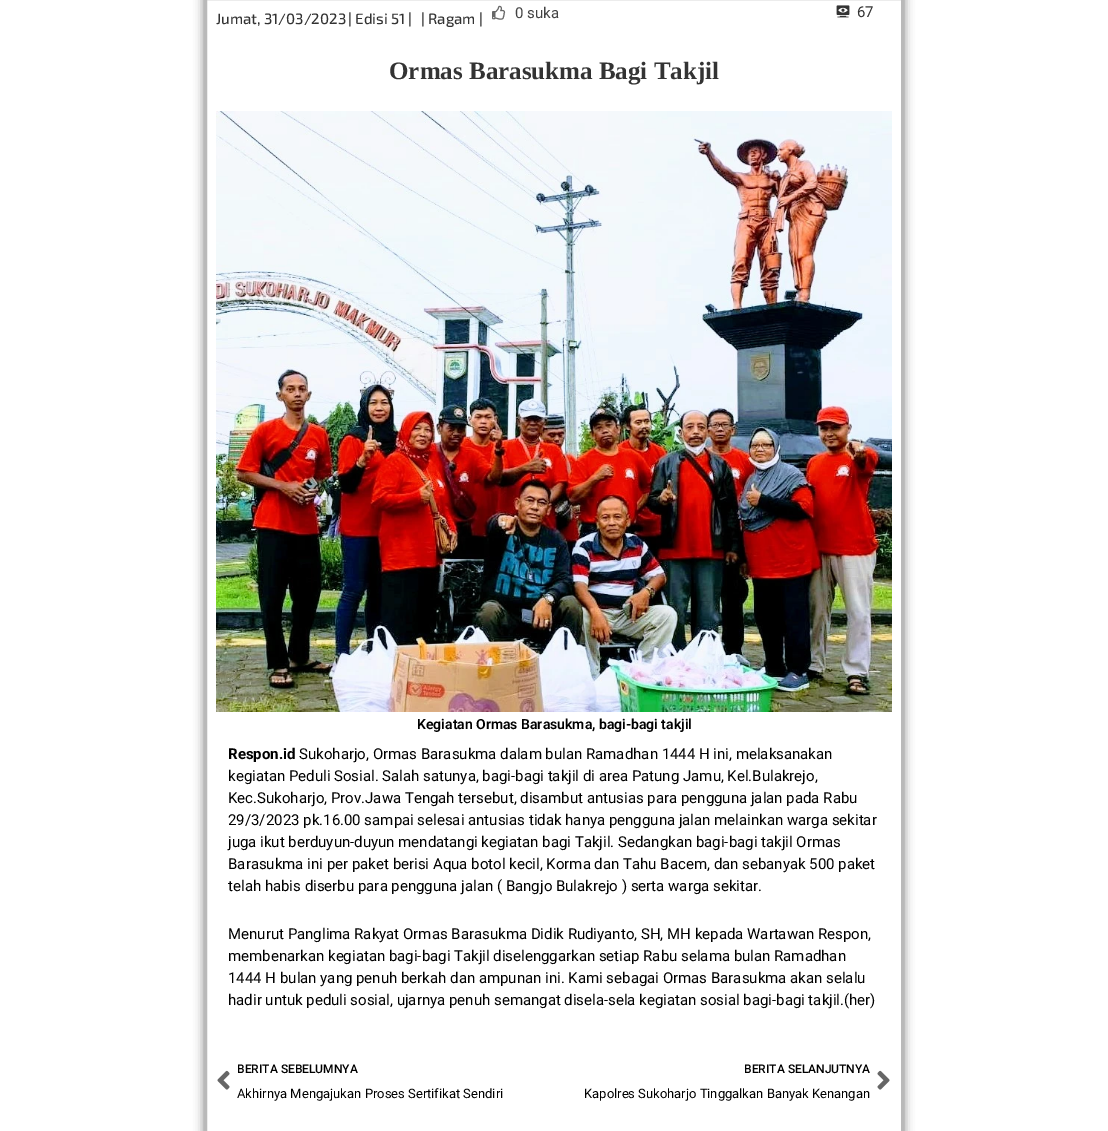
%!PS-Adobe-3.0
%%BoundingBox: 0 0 1108 1131
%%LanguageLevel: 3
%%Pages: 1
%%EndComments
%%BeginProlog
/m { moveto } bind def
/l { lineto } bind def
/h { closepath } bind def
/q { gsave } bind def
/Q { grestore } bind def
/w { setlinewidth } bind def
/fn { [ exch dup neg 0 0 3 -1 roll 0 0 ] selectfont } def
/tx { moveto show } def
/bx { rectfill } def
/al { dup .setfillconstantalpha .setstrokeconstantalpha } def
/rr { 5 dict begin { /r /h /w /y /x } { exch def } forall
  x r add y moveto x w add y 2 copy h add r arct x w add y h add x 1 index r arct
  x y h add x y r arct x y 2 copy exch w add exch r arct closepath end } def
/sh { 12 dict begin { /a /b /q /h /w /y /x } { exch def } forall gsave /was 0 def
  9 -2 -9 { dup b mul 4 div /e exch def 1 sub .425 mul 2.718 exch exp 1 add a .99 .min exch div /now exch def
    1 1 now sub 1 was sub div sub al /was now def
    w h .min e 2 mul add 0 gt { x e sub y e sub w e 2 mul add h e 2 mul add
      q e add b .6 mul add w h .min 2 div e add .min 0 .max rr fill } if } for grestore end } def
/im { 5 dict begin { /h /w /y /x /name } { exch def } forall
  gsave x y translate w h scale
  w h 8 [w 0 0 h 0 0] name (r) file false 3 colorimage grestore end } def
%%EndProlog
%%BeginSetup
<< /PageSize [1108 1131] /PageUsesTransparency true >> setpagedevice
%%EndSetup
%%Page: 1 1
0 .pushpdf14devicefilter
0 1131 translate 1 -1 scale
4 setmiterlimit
1 setgray
0 0 1108 1131 bx
q
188 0 m 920 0 l 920 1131 l 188 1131 l h 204 -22 m 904 -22 l 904 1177 l 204 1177 l h eoclip newpath
0 setgray
204 -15 700 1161 0 5 0.5 sh
Q
0.725 setgray
3 w
205.5 -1.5 697 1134 rectstroke
/Exo2-Medium 15 fn
0.2 setgray
(Jumat, 31/03/2023) 216 24 tx
(| Edisi 51 |) 348 24 tx
(| Ragam |) 421 24 tx
(image0.raw) 492 5 14 15 im
/Roboto-Regular 15 fn
0.259 setgray
(0 suka) 515 18 tx
(image1.raw) 836 5 14 13 im
0.2 setgray
(67) 857 17 tx
/LiberationSerif-Bold 25 fn
(Ormas Barasukma Bagi Takjil) 389 79 tx
(image2.raw) 216 111 676 601 im
/Roboto-SemiBold 14 fn
0 setgray
(Kegiatan Ormas Barasukma, bagi-bagi takjil) 417 729 tx
/Roboto-Bold 15 fn
(Respon.id) 228 759 tx
/Roboto-Regular 15 fn
(Sukoharjo, Ormas Barasukma dalam bulan Ramadhan 1444 H ini, melaksanakan) 299 759 tx
(kegiatan Peduli Sosial. Salah satunya, bagi-bagi takjil di area Patung Jamu, Kel.Bulakrejo,) 228 781 tx
(Kec.Sukoharjo, Prov.Jawa Tengah tersebut, disambut antusias para pengguna jalan pada Rabu) 228 803 tx
(29/3/2023 pk.16.00 sampai selesai antusias tidak hanya pengguna jalan melainkan warga sekitar) 228 825 tx
(juga ikut berduyun-duyun mendatangi kegiatan bagi Takjil. Sedangkan bagi-bagi takjil Ormas) 228 847 tx
(Barasukma ini per paket berisi Aqua botol kecil, Korma dan Tahu Bacem, dan sebanyak 500 paket) 228 869 tx
(telah habis diserbu para pengguna jalan \( Bangjo Bulakrejo \) serta warga sekitar.) 228 891 tx
(Menurut Panglima Rakyat Ormas Barasukma Didik Rudiyanto, SH, MH kepada Wartawan Respon,) 228 939 tx
(membenarkan kegiatan bagi-bagi Takjil diselenggarkan setiap Rabu selama bulan Ramadhan) 228 961 tx
(1444 H bulan yang penuh berkah dan ampunan ini. Kami sebagai Ormas Barasukma akan selalu) 228 983 tx
(hadir untuk peduli sosial, ujarnya penuh semangat disela-sela kegiatan sosial bagi-bagi takjil.\(her\)) 228 1005 tx
(image3.raw) 217 1070 13 20 im
/Roboto-Medium 12 fn
(BERITA SEBELUMNYA) 237 1073 tx
/Roboto-Regular 13 fn
(Akhirnya Mengajukan Proses Sertifikat Sendiri) 237 1098 tx
/Roboto-Medium 12 fn
(BERITA SELANJUTNYA) 744 1073 tx
/Roboto-Regular 13 fn
(Kapolres Sukoharjo Tinggalkan Banyak Kenangan) 584 1098 tx
(image4.raw) 877 1070 13 20 im
.poppdf14devicefilter showpage
%%EOF
